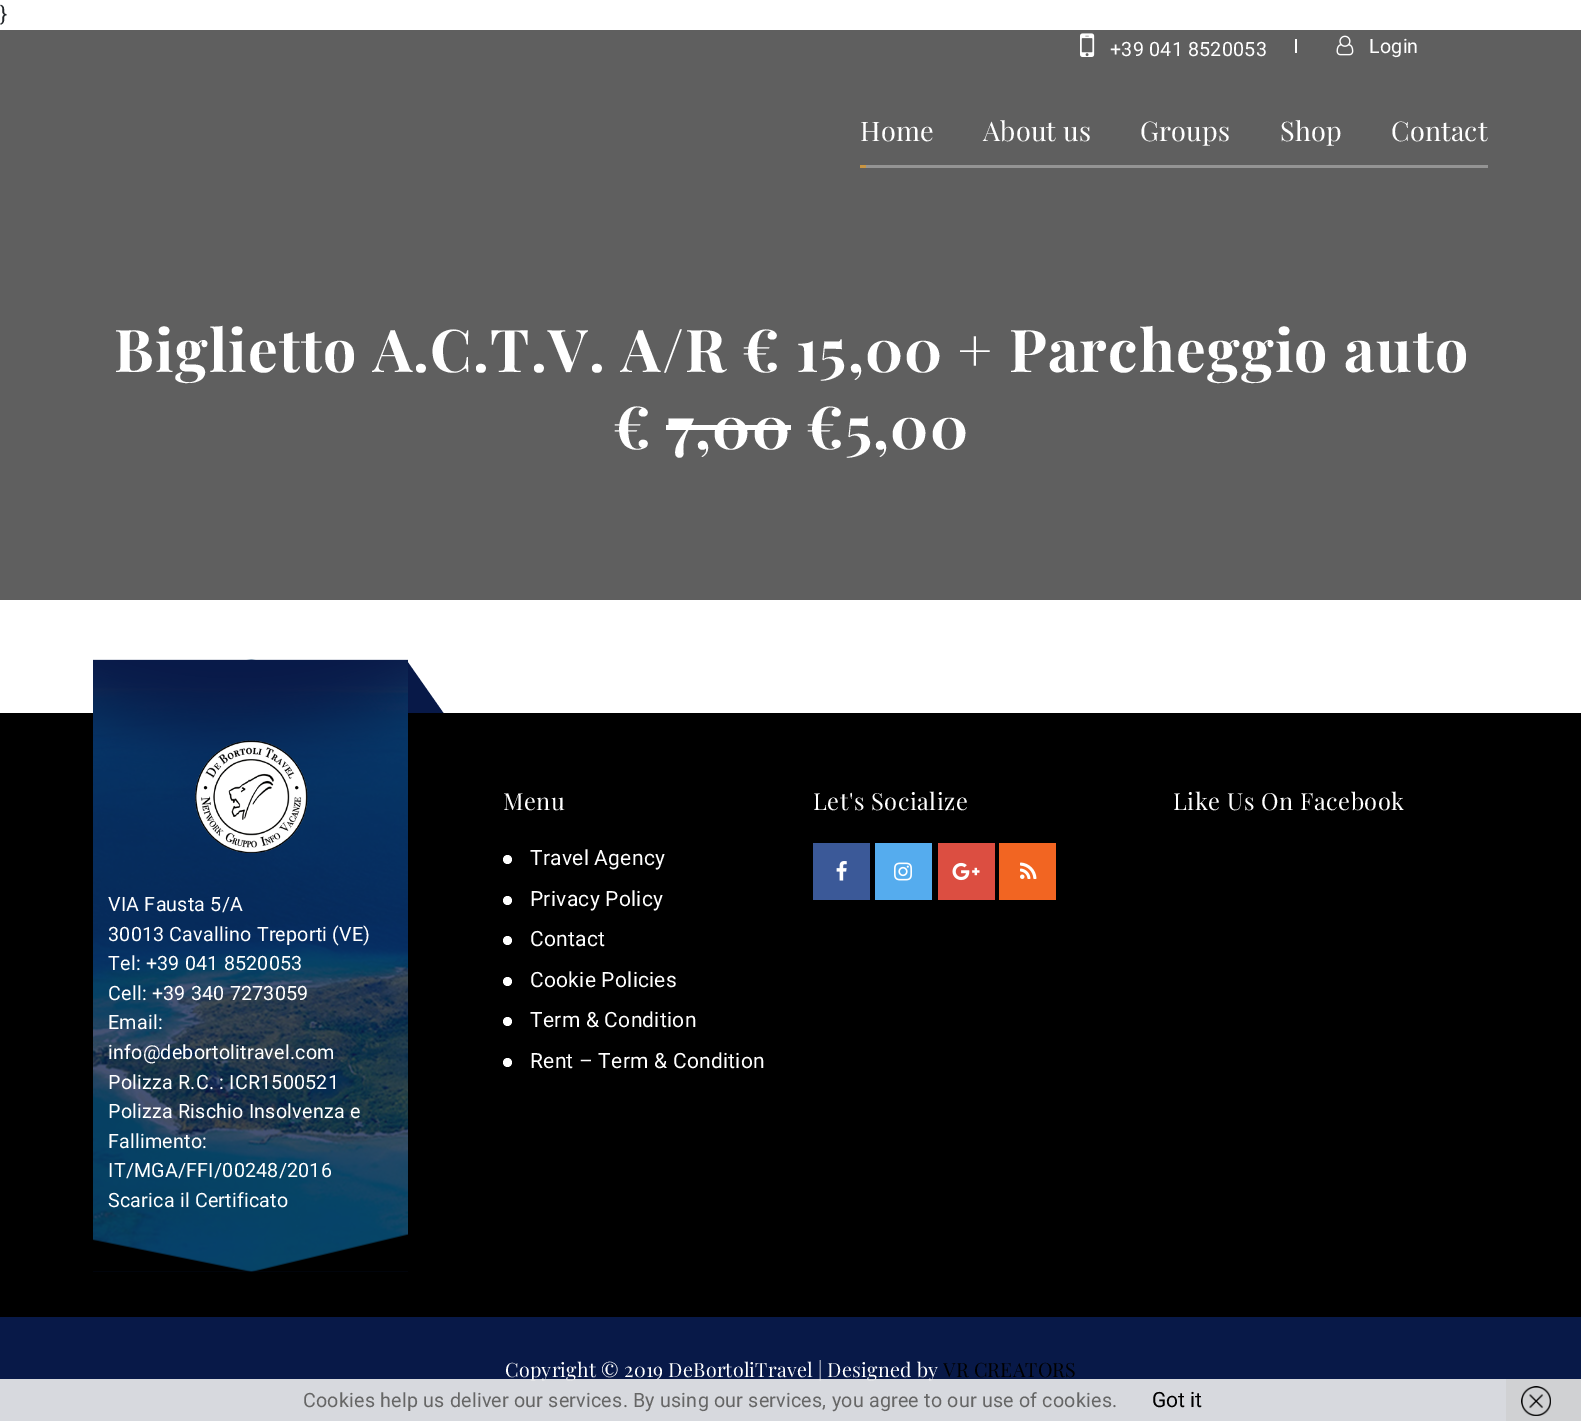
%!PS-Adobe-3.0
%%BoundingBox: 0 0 1581 1421
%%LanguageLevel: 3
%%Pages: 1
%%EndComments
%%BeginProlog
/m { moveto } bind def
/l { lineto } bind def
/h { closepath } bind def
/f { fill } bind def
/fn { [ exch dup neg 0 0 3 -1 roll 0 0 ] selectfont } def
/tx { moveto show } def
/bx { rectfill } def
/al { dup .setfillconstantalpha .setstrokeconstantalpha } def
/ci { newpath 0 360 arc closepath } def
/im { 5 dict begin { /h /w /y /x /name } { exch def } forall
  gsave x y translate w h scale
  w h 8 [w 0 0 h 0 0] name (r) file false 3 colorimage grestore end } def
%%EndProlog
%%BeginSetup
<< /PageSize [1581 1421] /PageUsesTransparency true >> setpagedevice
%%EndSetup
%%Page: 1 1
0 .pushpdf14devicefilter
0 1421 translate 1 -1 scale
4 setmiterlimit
1 setgray
0 0 1581 1421 bx
/Roboto-Regular 21 fn
0.129 0.145 0.161 setrgbcolor
(}) 0 21 tx
0.373 setgray
0 30 1581 570 bx
(image0.raw) 1080 33 15 24 im
/Roboto-Regular 19.7 fn
1 setgray
1110 56 m 0.2 0 (+39 041 8520053) ashow
1295 39 2 14 bx
(image1.raw) 1336 35 18 21 im
1369 53 m 0.2 0 (Login) ashow
0.58 setgray
860 165 628 3 bx
/PlayfairDisplay-Regular 27 fn
1 setgray
860 141 m 0.2 0 (Home) ashow
983 141 m 0.2 0 (About us) ashow
1140 141 m 0.2 0 (Groups) ashow
1280 141 m 0.2 0 (Shop) ashow
1391 141 m 0.2 0 (Contact) ashow
0.788 0.584 0.259 setrgbcolor
860 165 6 3 bx
/PlayfairDisplay-Bold 59.1 fn
1 setgray
114 372 m 1.2 0 (Biglietto A.C.T.V. A/R € 15,00 + Parcheggio auto) ashow
613 449 m 1.2 0 (€ 7,00 €5,00) ashow
666 425 125 5 bx
0.031 0.098 0.282 setrgbcolor
407 661 m 510 808 l 277 971 l 174 824 l h f
0 setgray
0 713 1581 604 bx
(image2.raw) 93 659 315 613 im
(image3.raw) 195 740 113 113 im
/Roboto-Regular 19.7 fn
1 setgray
108 911 m 0.2 0 (VIA Fausta 5/A) ashow
108 941 m 0.2 0 (30013 Cavallino Treporti \(VE\)) ashow
108 970 m 0.2 0 (Tel: +39 041 8520053) ashow
108 1000 m 0.2 0 (Cell: +39 340 7273059) ashow
108 1029 m 0.2 0 (Email:) ashow
108 1059 m 0.2 0 (info@debortolitravel.com) ashow
108 1089 m 0.2 0 (Polizza R.C. : ICR1500521) ashow
108 1118 m 0.2 0 (Polizza Rischio Insolvenza e) ashow
108 1148 m 0.2 0 (Fallimento:) ashow
108 1177 m 0.2 0 (IT/MGA/FFI/00248/2016) ashow
108 1207 m 0.2 0 (Scarica il Certificato) ashow
/PlayfairDisplay-Regular 23.6 fn
503 810 m 0.5 0 (Menu) ashow
507.5 859.5 4.5 ci f
/Roboto-Regular 21 fn
530 865 m 0.25 0 (Travel Agency) ashow
507.5 900.5 4.5 ci f
530 906 m 0.25 0 (Privacy Policy) ashow
507.5 940.5 4.5 ci f
530 946 m 0.25 0 (Contact) ashow
507.5 981.5 4.5 ci f
530 987 m 0.25 0 (Cookie Policies) ashow
507.5 1021.5 4.5 ci f
530 1027 m 0.25 0 (Term & Condition) ashow
507.5 1062.5 4.5 ci f
530 1068 m 0.25 0 (Rent – Term & Condition) ashow
/PlayfairDisplay-Regular 23.6 fn
813 810 m 0.5 0 (Let's Socialize) ashow
0.231 0.349 0.596 setrgbcolor
813 843 57 57 bx
(image4.raw) 836 861 11 20 im
0.333 0.675 0.933 setrgbcolor
875 843 57 57 bx
(image5.raw) 894 862 18 19 im
0.863 0.306 0.255 setrgbcolor
938 843 57 57 bx
(image6.raw) 952 862 28 19 im
0.949 0.396 0.133 setrgbcolor
999 843 57 57 bx
(image7.raw) 1020 862 17 17 im
1 setgray
1173 810 m 0.5 0 (Like Us On Facebook) ashow
0.031 0.098 0.282 setrgbcolor
0 1317 1581 104 bx
/PlayfairDisplay-Regular 19.7 fn
1 setgray
505 1377 m 0.2 0 (Copyright © 2019 DeBortoliTravel | Designed by) ashow
0 setgray
943 1377 m 0.2 0 (VR CREATORS) ashow
0.9 al
0.933 setgray
0 1379 1506 42 bx
/Roboto-Regular 19.7 fn
1 al
0.4 setgray
303 1407 m 0.2 0 (Cookies help us deliver our services. By using our services, you agree to our use of cookies.) ashow
/Roboto-Regular 21 fn
0 setgray
(Got it) 1152 1407 tx
0.816 0.82 0.827 setrgbcolor
1506 1379 75 42 bx
(image8.raw) 1521 1386 30 30 im
.poppdf14devicefilter showpage
%%EOF
